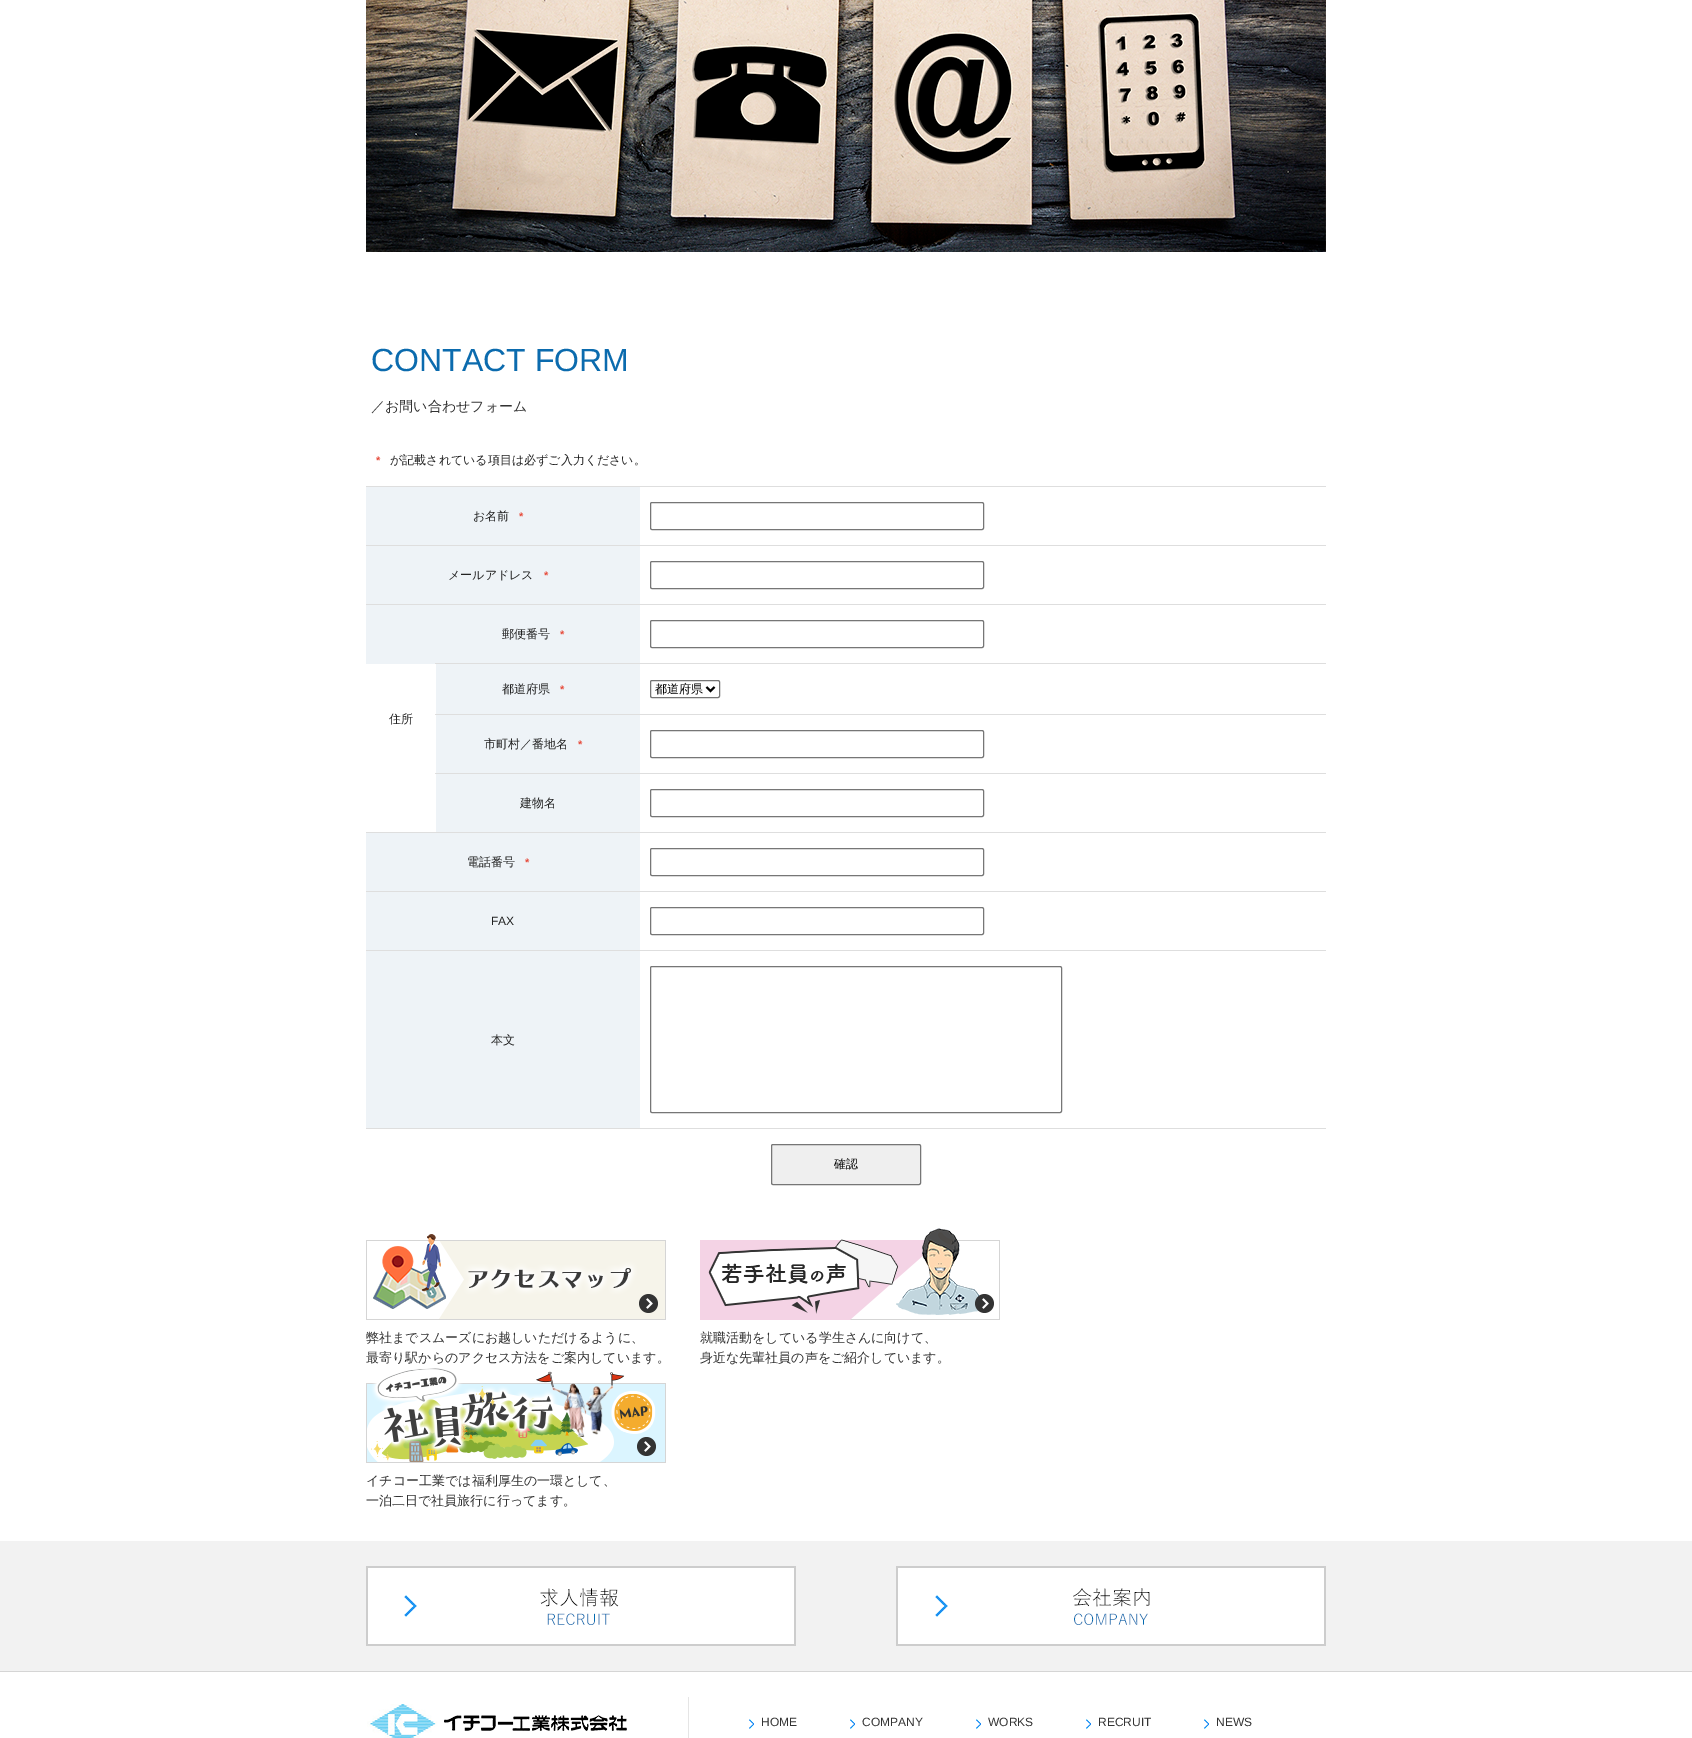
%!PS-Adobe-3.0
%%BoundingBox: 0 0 1692 1738
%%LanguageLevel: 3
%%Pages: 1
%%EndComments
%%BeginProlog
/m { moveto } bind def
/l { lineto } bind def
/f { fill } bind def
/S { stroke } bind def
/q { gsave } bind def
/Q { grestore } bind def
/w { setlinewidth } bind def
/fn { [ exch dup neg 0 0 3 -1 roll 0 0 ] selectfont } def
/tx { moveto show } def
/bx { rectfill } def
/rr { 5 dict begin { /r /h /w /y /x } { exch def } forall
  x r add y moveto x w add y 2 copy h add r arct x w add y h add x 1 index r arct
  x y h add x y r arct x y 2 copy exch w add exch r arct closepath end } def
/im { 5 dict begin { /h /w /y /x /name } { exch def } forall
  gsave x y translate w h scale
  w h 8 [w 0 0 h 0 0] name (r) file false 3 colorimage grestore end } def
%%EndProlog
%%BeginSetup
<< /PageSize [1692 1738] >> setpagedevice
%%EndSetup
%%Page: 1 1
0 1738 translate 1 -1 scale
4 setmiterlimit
1 setgray
0 0 1692 1738 bx
(image0.raw) 366 0 960 252 im
/LiberationSans-Regular 32 fn
0.043 0.42 0.682 setrgbcolor
(CONTACT FORM) 371 371 tx
/WenQuanYiZenHei-Medium 14 fn
0.2 setgray
(／お問い合わせフォーム) 371 411 tx
/LiberationSans-Bold 11 fn
0.906 0.298 0.235 setrgbcolor
(*) 376 464 tx
/WenQuanYiZenHei-Medium 12 fn
0.133 setgray
(が記載されている項目は必ずご入力ください。) 390 464 tx
0.871 setgray
366 486 960 1 bx
366 545 960 1 bx
0.463 setgray
650.5 502.5 333 27 1.5 rr S
0.933 0.953 0.969 setrgbcolor
366 487 274 58 bx
0.133 setgray
(お名前) 473 520 tx
/LiberationSans-Bold 11 fn
0.906 0.298 0.235 setrgbcolor
(*) 519 520 tx
0.871 setgray
366 604 960 1 bx
0.463 setgray
650.5 561.5 333 27 1.5 rr S
0.933 0.953 0.969 setrgbcolor
366 546 274 58 bx
/WenQuanYiZenHei-Medium 12 fn
0.133 setgray
(メールアドレス) 448 579 tx
/LiberationSans-Bold 11 fn
0.906 0.298 0.235 setrgbcolor
(*) 544 579 tx
0.933 0.953 0.969 setrgbcolor
366 605 70 59 bx
0.871 setgray
435 663 891 1 bx
0.463 setgray
650.5 620.5 333 27 1.5 rr S
0.933 0.953 0.969 setrgbcolor
436 605 204 58 bx
/WenQuanYiZenHei-Medium 12 fn
0.133 setgray
(郵便番号) 502 638 tx
/LiberationSans-Bold 11 fn
0.906 0.298 0.235 setrgbcolor
(*) 560 638 tx
/WenQuanYiZenHei-Medium 12 fn
0.133 setgray
(住所) 389 723 tx
0.933 0.953 0.969 setrgbcolor
436 664 204 50 bx
0.133 setgray
(都道府県) 502 693 tx
/LiberationSans-Bold 11 fn
0.906 0.298 0.235 setrgbcolor
(*) 560 693 tx
0.871 setgray
435 714 891 1 bx
0.463 setgray
650.5 680.5 69 17 1.5 rr S
0 setgray
2 w
706.5 687 m 710.5 691 l 714.5 687 l S
/WenQuanYiZenHei-Medium 12 fn
(都道府県) 655 693 tx
0.871 setgray
435 773 891 1 bx
0.463 setgray
1 w
650.5 730.5 333 27 1.5 rr S
0.933 0.953 0.969 setrgbcolor
436 715 204 58 bx
0.133 setgray
(市町村／番地名) 484 748 tx
/LiberationSans-Bold 11 fn
0.906 0.298 0.235 setrgbcolor
(*) 578 748 tx
0.871 setgray
366 832 960 1 bx
0.463 setgray
650.5 789.5 333 27 1.5 rr S
0.933 0.953 0.969 setrgbcolor
436 774 204 58 bx
/WenQuanYiZenHei-Medium 12 fn
0.133 setgray
(建物名) 520 807 tx
0.871 setgray
366 891 960 1 bx
0.463 setgray
650.5 848.5 333 27 1.5 rr S
0.933 0.953 0.969 setrgbcolor
366 833 274 58 bx
0.133 setgray
(電話番号) 467 866 tx
/LiberationSans-Bold 11 fn
0.906 0.298 0.235 setrgbcolor
(*) 525 866 tx
0.871 setgray
366 950 960 1 bx
0.463 setgray
650.5 907.5 333 27 1.5 rr S
0.933 0.953 0.969 setrgbcolor
366 892 274 58 bx
/LiberationSans-Regular 12 fn
0.133 setgray
(FAX) 491 925 tx
0.871 setgray
366 1128 960 1 bx
0.463 setgray
650.5 966.5 411 146 1.5 rr S
0.933 0.953 0.969 setrgbcolor
366 951 274 177 bx
/WenQuanYiZenHei-Medium 12 fn
0.133 setgray
(本文) 491 1044 tx
0.937 setgray
771.5 1144.5 149 40 1.5 rr q f Q
0.463 setgray
S
0 setgray
(確認) 834 1168 tx
(image1.raw) 366 1234 300 86 im
/WenQuanYiZenHei-Medium 13 fn
0.2 setgray
(弊社までスムーズにお越しいただけるように、) 366 1342 tx
(最寄り駅からのアクセス方法をご案内しています。) 366 1362 tx
(image2.raw) 700 1228 300 92 im
(就職活動をしている学生さんに向けて、) 700 1342 tx
(身近な先輩社員の声をご紹介しています。) 700 1362 tx
(image3.raw) 366 1368 300 95 im
(イチコー工業では福利厚生の一環として、) 366 1485 tx
(一泊二日で社員旅行に行ってます。) 366 1505 tx
0.949 setgray
0 1541 1692 130 bx
0.835 setgray
0 1671 1692 1 bx
(image4.raw) 366 1566 430 80 im
(image5.raw) 896 1566 430 80 im
0.898 setgray
688 1697 1 41 bx
(image6.raw) 367 1704 260 34 im
(image7.raw) 749 1719 5 10 im
/LiberationSans-Regular 12 fn
0.2 setgray
(HOME) 761 1726 tx
(image7.raw) 850 1719 5 10 im
(COMPANY) 862 1726 tx
(image7.raw) 976 1719 5 10 im
(WORKS) 988 1726 tx
(image7.raw) 1086 1719 5 10 im
(RECRUIT) 1098 1726 tx
(image7.raw) 1204 1719 5 10 im
(NEWS) 1216 1726 tx
showpage
%%EOF
